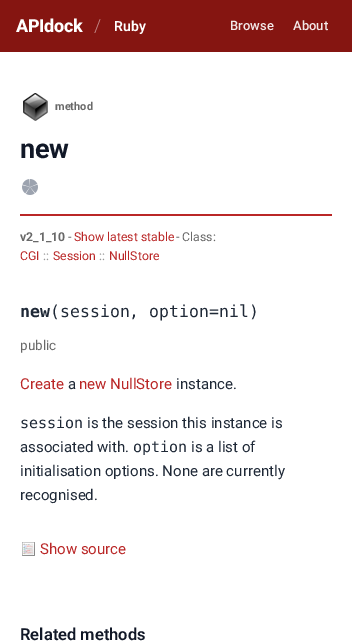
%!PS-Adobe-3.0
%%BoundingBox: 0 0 352 643
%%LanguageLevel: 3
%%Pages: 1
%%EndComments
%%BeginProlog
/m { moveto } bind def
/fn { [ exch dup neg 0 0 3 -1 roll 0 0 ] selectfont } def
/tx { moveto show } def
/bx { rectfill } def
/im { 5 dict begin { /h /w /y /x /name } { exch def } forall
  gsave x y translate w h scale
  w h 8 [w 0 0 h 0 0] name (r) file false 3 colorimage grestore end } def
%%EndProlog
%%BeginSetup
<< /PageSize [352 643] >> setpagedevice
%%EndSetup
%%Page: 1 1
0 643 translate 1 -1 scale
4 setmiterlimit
1 setgray
0 0 352 643 bx
0.522 0.082 0.067 setrgbcolor
0 0 352 52 bx
/Roboto-ExtraBold 18 fn
1 setgray
16 32 m -0.25 0 (APIdock) ashow
/Roboto-Light 18 fn
0.761 0.541 0.533 setrgbcolor
(/) 94 32 tx
/Roboto-SemiBold 14 fn
1 setgray
(Ruby) 114 31 tx
/Roboto-Medium 13 fn
0.953 0.91 0.906 setrgbcolor
(Browse) 230 30 tx
(About) 293 30 tx
0.729 0.153 0.153 setrgbcolor
20 214 312 2 bx
(image0.raw) 23 93 25 28 im
/Roboto-Bold 11 fn
0.412 setgray
(method) 55 110 tx
/Roboto-Bold 27 fn
0.067 0.094 0.153 setrgbcolor
20 158 m -0.5 0 (new) ashow
(image1.raw) 22 179 16 16 im
/Roboto-Bold 12.25 fn
0.412 setgray
(v2_1_10) 20 241 tx
/Roboto-Regular 12.25 fn
(-) 68 241 tx
0.729 0.153 0.153 setrgbcolor
(Show latest stable) 74 241 tx
0.412 setgray
(- Class:) 176 241 tx
0.729 0.153 0.153 setrgbcolor
(CGI) 20 260 tx
0.6 setgray
(::) 43 260 tx
0.729 0.153 0.153 setrgbcolor
(Session) 53 260 tx
0.6 setgray
(::) 99 260 tx
0.729 0.153 0.153 setrgbcolor
(NullStore) 109 260 tx
/DejaVuSansMono-Bold 16.5 fn
0.122 0.161 0.216 setrgbcolor
(new) 20 317 tx
/DejaVuSansMono-Regular 16.5 fn
(\(session, option=nil\)) 50 317 tx
/Roboto-Regular 13.5 fn
0.412 setgray
(public) 20 350 tx
/Roboto-Regular 15 fn
0.729 0.153 0.153 setrgbcolor
(Create) 20 389 tx
0.122 0.161 0.216 setrgbcolor
(a) 68 389 tx
0.729 0.153 0.153 setrgbcolor
(new NullStore) 79 389 tx
0.122 0.161 0.216 setrgbcolor
(instance.) 176 389 tx
/DejaVuSansMono-Regular 15 fn
(session) 20 428 tx
/Roboto-Regular 15 fn
(is the session this instance is) 87 428 tx
(associated with.) 20 452 tx
/DejaVuSansMono-Regular 15 fn
(option) 133 452 tx
/Roboto-Regular 15 fn
(is a list of) 191 452 tx
(initialisation options. None are currently) 20 476 tx
(recognised.) 20 500 tx
(image2.raw) 22 542 13 14 im
0.729 0.153 0.153 setrgbcolor
(Show source) 40 554 tx
/Roboto-SemiBold 16.5 fn
0.067 0.094 0.153 setrgbcolor
(Related methods) 20 640 tx
showpage
%%EOF
